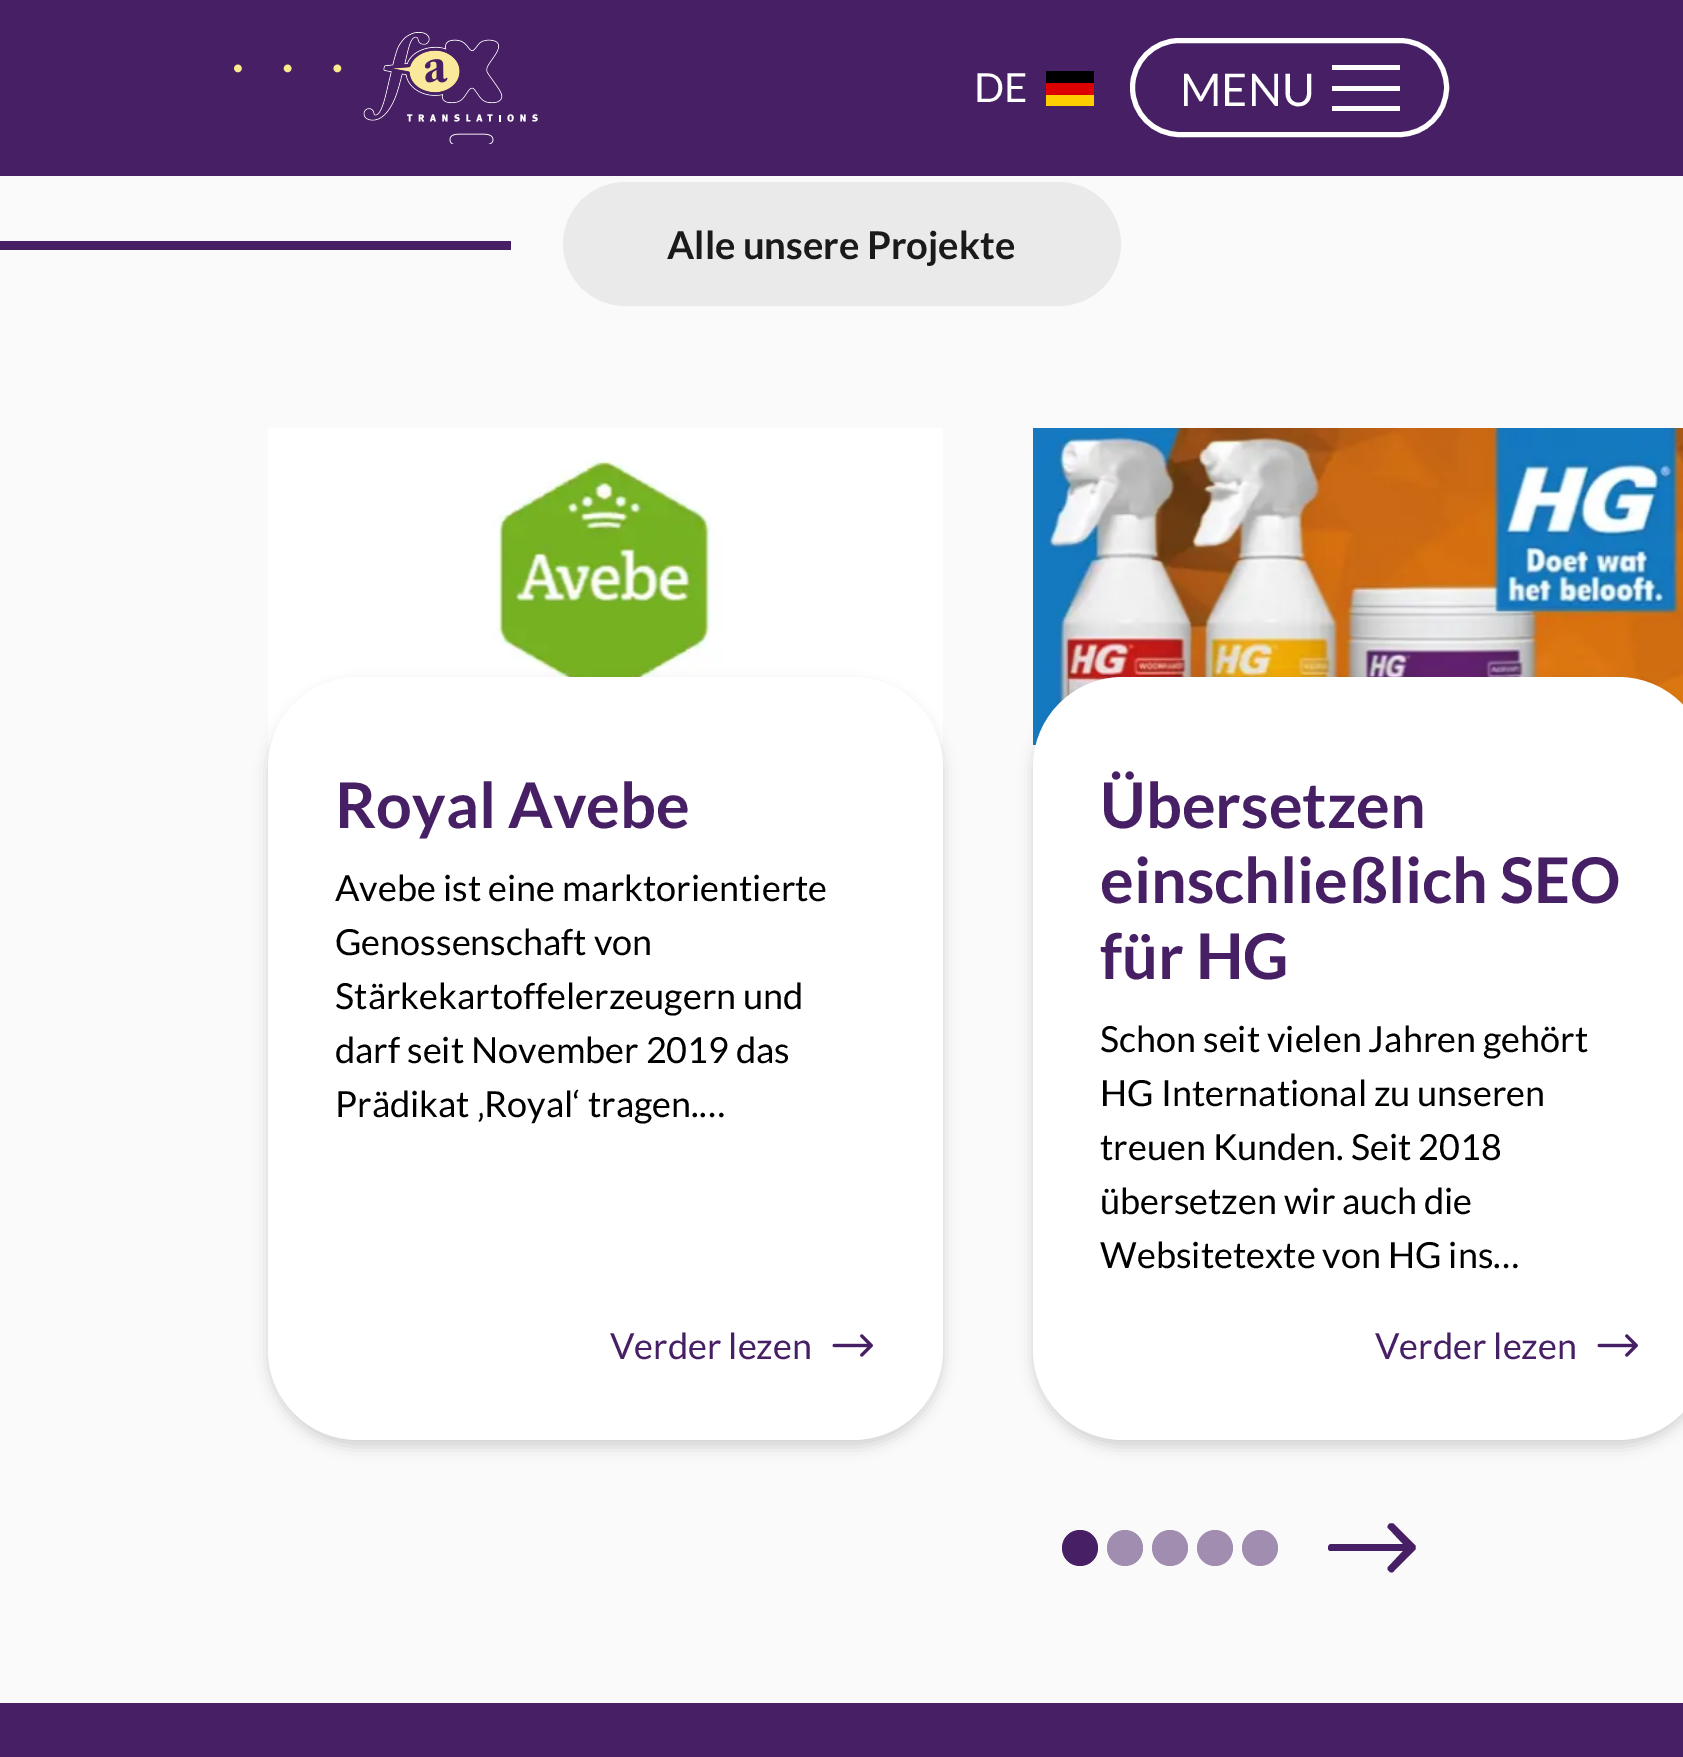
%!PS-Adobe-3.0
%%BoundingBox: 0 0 1683 1757
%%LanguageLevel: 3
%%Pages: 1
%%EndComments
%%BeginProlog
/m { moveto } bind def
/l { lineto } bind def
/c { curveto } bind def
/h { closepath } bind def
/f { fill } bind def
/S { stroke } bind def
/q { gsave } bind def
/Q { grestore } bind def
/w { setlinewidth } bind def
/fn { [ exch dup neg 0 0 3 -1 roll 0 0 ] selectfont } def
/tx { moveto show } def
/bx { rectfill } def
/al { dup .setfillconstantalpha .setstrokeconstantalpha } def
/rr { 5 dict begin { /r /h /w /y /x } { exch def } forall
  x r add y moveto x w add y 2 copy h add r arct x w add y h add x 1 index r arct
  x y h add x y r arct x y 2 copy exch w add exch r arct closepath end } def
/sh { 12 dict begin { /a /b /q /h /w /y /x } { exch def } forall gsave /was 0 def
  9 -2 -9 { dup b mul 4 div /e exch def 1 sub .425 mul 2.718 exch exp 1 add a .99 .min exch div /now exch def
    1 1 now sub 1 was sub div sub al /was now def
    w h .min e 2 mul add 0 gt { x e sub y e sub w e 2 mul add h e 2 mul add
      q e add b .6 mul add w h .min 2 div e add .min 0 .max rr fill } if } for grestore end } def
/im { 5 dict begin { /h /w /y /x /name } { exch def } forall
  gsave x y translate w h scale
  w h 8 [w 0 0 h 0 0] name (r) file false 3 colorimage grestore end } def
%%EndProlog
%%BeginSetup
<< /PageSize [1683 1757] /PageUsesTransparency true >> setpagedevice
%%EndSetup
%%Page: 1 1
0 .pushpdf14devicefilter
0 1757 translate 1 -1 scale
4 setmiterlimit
0.98 setgray
0 0 1683 1757 bx
0.278 0.122 0.392 setrgbcolor
0 0 1683 176 bx
(image0.raw) 234 32 304 112 im
/Lato-Regular 40 fn
1 setgray
(DE) 974 102 tx
1 0.808 0 setrgbcolor
1046 95 48 11 bx
0 setgray
1046 71 48 12 bx
0.867 0 0 setrgbcolor
1046 83 48 12 bx
1 setgray
5 w
1132.5 40.5 314 94 47 rr S
/Lato-Regular 45 fn
(MENU) 1180 106 tx
1332 65 68 5 bx
1332 86 68 5 bx
1332 106 68 5 bx
0.918 setgray
565.5 184.5 553 119 59.5 rr q f Q
S
0.278 0.122 0.392 setrgbcolor
0 241 511 9 bx
/Lato-Bold 38.25 fn
0.102 setgray
(Alle unsere Projekte) 667 259 tx
(image1.raw) 268 428 675 317 im
0 setgray
268 684 675 763 90 7 0.16 sh
1 setgray
268 677 675 763 90 rr f
/Lato-Bold 63 fn
0.278 0.122 0.392 setrgbcolor
(Royal Avebe) 335 828 tx
/Lato-Regular 36 fn
0 setgray
(Avebe ist eine marktorientierte) 335 901 tx
(Genossenschaft von) 335 955 tx
(Stärkekartoffelerzeugern und) 335 1009 tx
(darf seit November 2019 das) 335 1063 tx
(Prädikat ‚Royal‘ tragen.…) 335 1117 tx
0.278 0.122 0.392 setrgbcolor
(Verder lezen) 610 1359 tx
(image2.raw) 832 1334 41 23 im
(image3.raw) 1033 428 650 317 im
0 setgray
1033 684 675 763 90 7 0.16 sh
1 setgray
1033 677 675 763 90 rr f
/Lato-Bold 63 fn
0.278 0.122 0.392 setrgbcolor
(Übersetzen) 1100 828 tx
(einschließlich SEO) 1100 903 tx
(für HG) 1100 979 tx
/Lato-Regular 36 fn
0 setgray
(Schon seit vielen Jahren gehört) 1100 1052 tx
(HG International zu unseren) 1100 1106 tx
(treuen Kunden. Seit 2018) 1100 1160 tx
(übersetzen wir auch die) 1100 1214 tx
(Websitetexte von HG ins…) 1100 1268 tx
0.278 0.122 0.392 setrgbcolor
(Verder lezen) 1375 1359 tx
(image2.raw) 1597 1334 41 23 im
1062 1548 m 1062 1538 1070 1530 1080 1530 c 1090 1530 1098 1538 1098 1548 c 1098 1558 1090 1566 1080 1566 c 1070 1566 1062 1558 1062 1548 c h f
0.631 0.553 0.686 setrgbcolor
1107 1548 m 1107 1538 1115 1530 1125 1530 c 1135 1530 1143 1538 1143 1548 c 1143 1558 1135 1566 1125 1566 c 1115 1566 1107 1558 1107 1548 c h f
1152 1548 m 1152 1538 1160 1530 1170 1530 c 1180 1530 1188 1538 1188 1548 c 1188 1558 1180 1566 1170 1566 c 1160 1566 1152 1558 1152 1548 c h f
1197 1548 m 1197 1538 1205 1530 1215 1530 c 1225 1530 1233 1538 1233 1548 c 1233 1558 1225 1566 1215 1566 c 1205 1566 1197 1558 1197 1548 c h f
1242 1548 m 1242 1538 1250 1530 1260 1530 c 1270 1530 1278 1538 1278 1548 c 1278 1558 1270 1566 1260 1566 c 1250 1566 1242 1558 1242 1548 c h f
0.278 0.122 0.392 setrgbcolor
1415 1550 m 1416 1549 1416 1546 1415 1545 c 1394 1524 l 1393 1523 1390 1523 1389 1524 c 1387 1526 1387 1528 1389 1529 c 1403 1544 l 1331 1544 l 1329 1544 1328 1546 1328 1548 c 1328 1550 1329 1551 1331 1551 c 1403 1551 l 1389 1566 l 1387 1567 1387 1570 1389 1571 c 1390 1573 1393 1573 1394 1571 c h f
0 1703 1683 54 bx
.poppdf14devicefilter showpage
%%EOF
